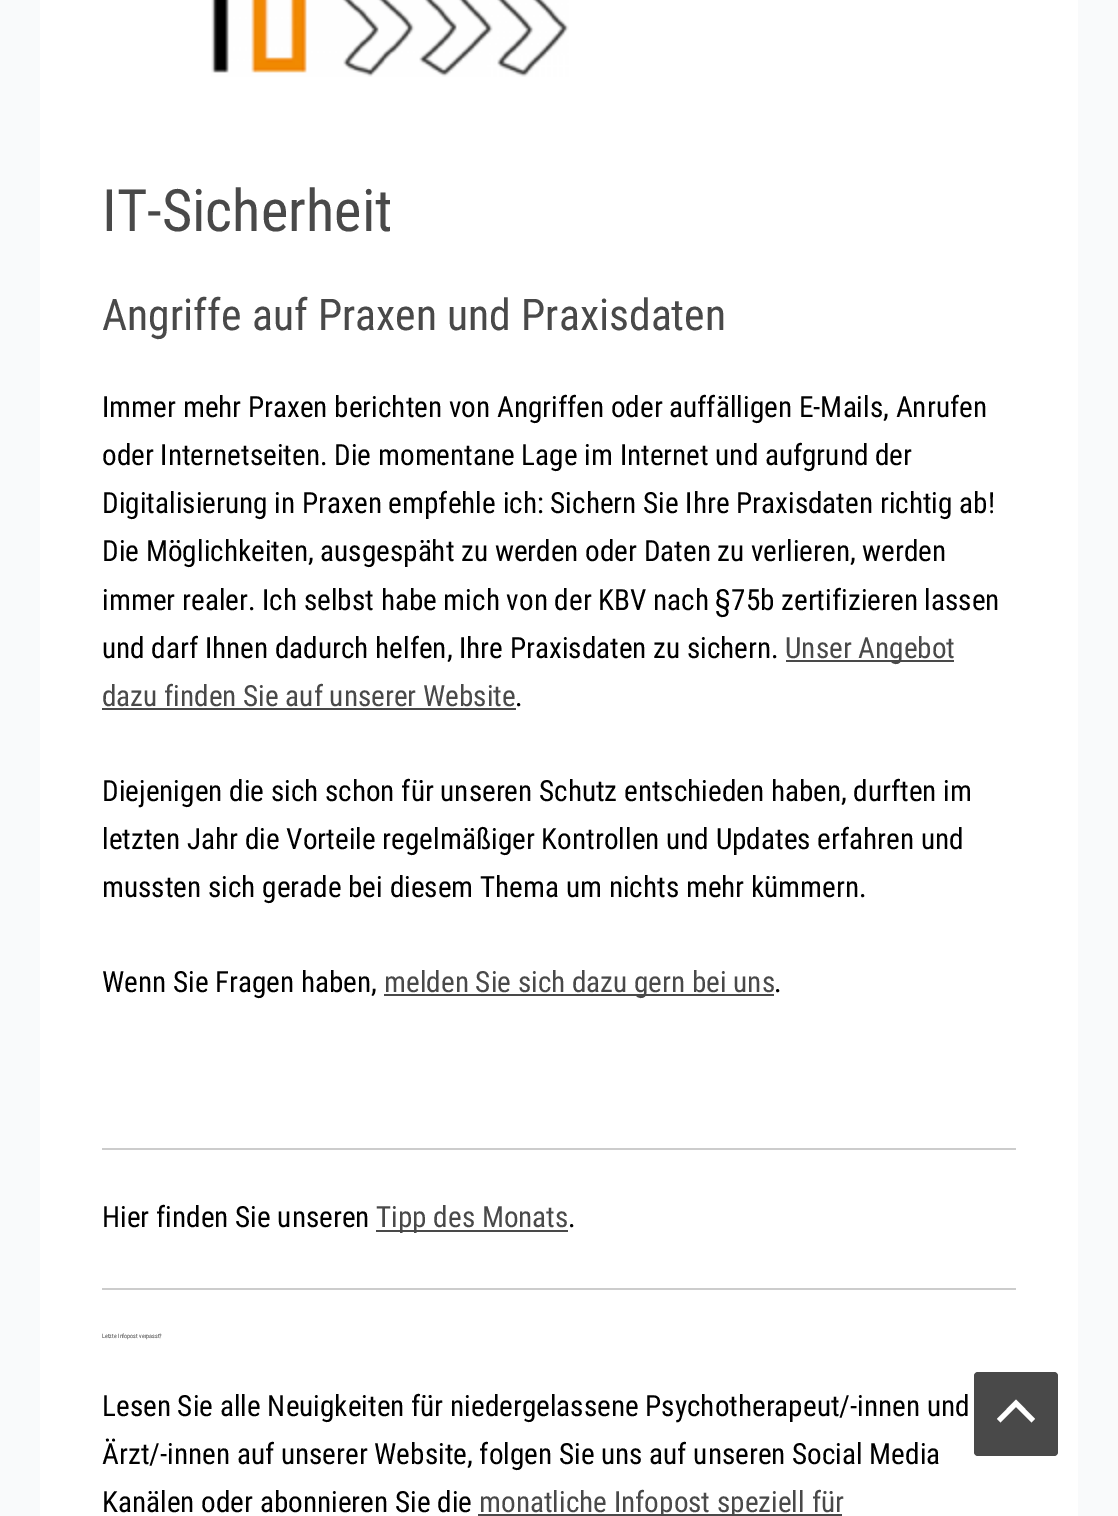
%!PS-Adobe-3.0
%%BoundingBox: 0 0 1118 1516
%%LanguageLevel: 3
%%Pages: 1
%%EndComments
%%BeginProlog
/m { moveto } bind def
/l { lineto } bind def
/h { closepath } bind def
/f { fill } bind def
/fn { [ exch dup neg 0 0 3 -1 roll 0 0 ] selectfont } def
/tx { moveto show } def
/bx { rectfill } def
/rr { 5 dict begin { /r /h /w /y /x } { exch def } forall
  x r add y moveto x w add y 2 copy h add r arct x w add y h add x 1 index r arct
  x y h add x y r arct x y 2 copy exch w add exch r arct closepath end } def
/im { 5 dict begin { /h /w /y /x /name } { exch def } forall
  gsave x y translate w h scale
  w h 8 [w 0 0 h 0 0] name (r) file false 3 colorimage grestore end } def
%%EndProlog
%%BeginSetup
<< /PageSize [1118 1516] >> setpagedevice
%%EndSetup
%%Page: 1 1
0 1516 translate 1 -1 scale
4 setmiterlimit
0.976 0.98 0.984 setrgbcolor
0 0 1118 1516 bx
1 setgray
40 0 1038 1516 bx
(image0.raw) 211 0 358 77 im
/RobotoCondensed-Regular 58.5 fn
0.286 setgray
(IT-Sicherheit) 102 231 tx
/RobotoCondensed-Regular 43.75 fn
(Angriffe auf Praxen und Praxisdaten) 102 330 tx
/RobotoCondensed-Regular 29.2 fn
0 setgray
(Immer mehr Praxen berichten von Angriffen oder auffälligen E-Mails, Anrufen) 102 417 tx
(oder Internetseiten. Die momentane Lage im Internet und aufgrund der) 102 465 tx
(Digitalisierung in Praxen empfehle ich: Sichern Sie Ihre Praxisdaten richtig ab!) 102 513 tx
(Die Möglichkeiten, ausgespäht zu werden oder Daten zu verlieren, werden) 102 561 tx
(immer realer. Ich selbst habe mich von der KBV nach §75b zertifizieren lassen) 102 610 tx
(und darf Ihnen dadurch helfen, Ihre Praxisdaten zu sichern.) 102 658 tx
0.286 setgray
786 660 168 2 bx
(Unser Angebot) 785 658 tx
(dazu finden Sie auf unserer Website) 102 706 tx
102 708 414 2 bx
0 setgray
(.) 515 706 tx
(Diejenigen die sich schon für unseren Schutz entschieden haben, durften im) 102 801 tx
(letzten Jahr die Vorteile regelmäßiger Kontrollen und Updates erfahren und) 102 849 tx
(mussten sich gerade bei diesem Thema um nichts mehr kümmern.) 102 897 tx
(Wenn Sie Fragen haben,) 102 992 tx
0.286 setgray
384 994 390 2 bx
(melden Sie sich dazu gern bei uns) 384 992 tx
0 setgray
(.) 774 992 tx
0.8 setgray
102 1148 914 2 bx
0 setgray
(Hier finden Sie unseren) 102 1227 tx
0.286 setgray
376 1230 192 2 bx
(Tipp des Monats) 376 1227 tx
0 setgray
(.) 568 1227 tx
0.8 setgray
102 1288 914 2 bx
/RobotoCondensed-Regular 6 fn
0.286 setgray
(Letzte Infopost verpasst?) 102 1338 tx
/RobotoCondensed-Regular 29.2 fn
0 setgray
(Lesen Sie alle Neuigkeiten für niedergelassene Psychotherapeut/-innen und) 102 1416 tx
(Ärzt/-innen auf unserer Website, folgen Sie uns auf unseren Social Media) 102 1464 tx
(Kanälen oder abonnieren Sie die) 102 1512 tx
0.286 setgray
478 1514 364 2 bx
(monatliche Infopost speziell für) 479 1512 tx
974 1372 84 84 4 rr f
1 setgray
1035 1419 m 1016 1399.5 l 997 1419 l 1000.5 1422.5 l 1016 1407 l 1031.5 1422.5 l h f
showpage
%%EOF
